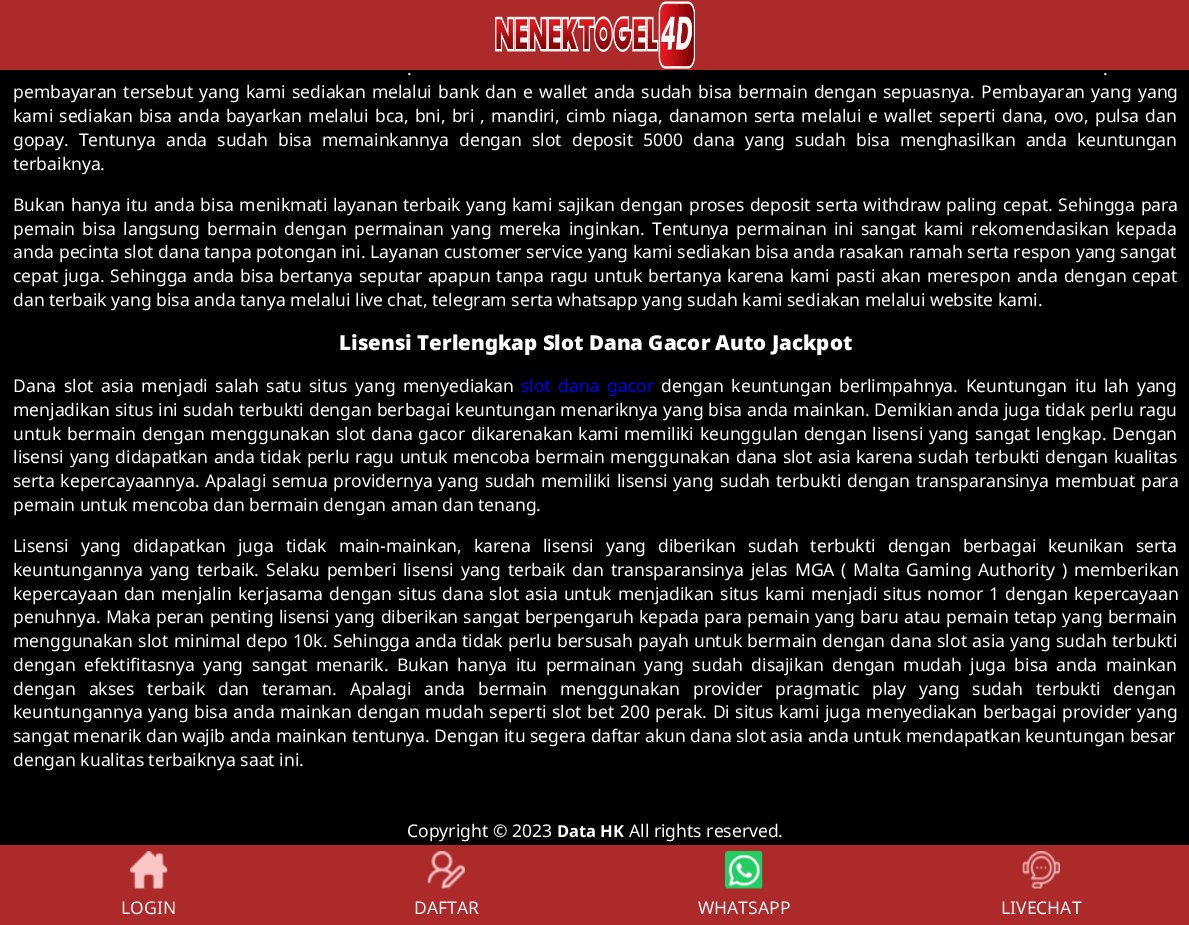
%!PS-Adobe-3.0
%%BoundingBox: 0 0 1189 925
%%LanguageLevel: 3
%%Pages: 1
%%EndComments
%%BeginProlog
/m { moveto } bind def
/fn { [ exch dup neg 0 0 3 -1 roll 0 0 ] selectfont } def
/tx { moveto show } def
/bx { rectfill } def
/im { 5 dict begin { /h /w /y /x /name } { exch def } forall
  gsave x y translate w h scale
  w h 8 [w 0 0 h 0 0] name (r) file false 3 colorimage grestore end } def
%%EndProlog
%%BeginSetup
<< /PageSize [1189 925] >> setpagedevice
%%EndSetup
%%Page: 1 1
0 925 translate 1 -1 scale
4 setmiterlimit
0 setgray
0 0 1189 925 bx
0.678 0.165 0.165 setrgbcolor
0 0 1189 70 bx
(image0.raw) 495 1 200 68 im
/NotoSans-Regular 17.5 fn
1 setgray
(.) 407 75 tx
(.) 1103 75 tx
13 98 m 1.7 0 32 (pembayaran tersebut yang kami sediakan melalui bank dan e wallet anda sudah bisa bermain dengan sepuasnya. Pembayaran yang yang) widthshow
13 122 m 1.6 0 32 (kami sediakan bisa anda bayarkan melalui bca, bni, bri , mandiri, cimb niaga, danamon serta melalui e wallet seperti dana, ovo, pulsa dan) widthshow
13 146 m 5.6 0 32 (gopay. Tentunya anda sudah bisa memainkannya dengan slot deposit 5000 dana yang sudah bisa menghasilkan anda keuntungan) widthshow
(terbaiknya.) 13 170 tx
13 211 m 1 0 32 (Bukan hanya itu anda bisa menikmati layanan terbaik yang kami sajikan dengan proses deposit serta withdraw paling cepat. Sehingga para) widthshow
13 235 m 2.75 0 32 (pemain bisa langsung bermain dengan permainan yang mereka inginkan. Tentunya permainan ini sangat kami rekomendasikan kepada) widthshow
(anda pecinta slot dana tanpa potongan ini. Layanan customer service yang kami sediakan bisa anda rasakan ramah serta respon yang sangat) 13 258 tx
13 282 m 1.25 0 32 (cepat juga. Sehingga anda bisa bertanya seputar apapun tanpa ragu untuk bertanya karena kami pasti akan merespon anda dengan cepat) widthshow
(dan terbaik yang bisa anda tanya melalui live chat, telegram serta whatsapp yang sudah kami sediakan melalui website kami.) 13 306 tx
/NotoSans-Black 20.5 fn
(Lisensi Terlengkap Slot Dana Gacor Auto Jackpot) 339 350 tx
/NotoSans-Regular 17.5 fn
13 392 m 3 0 32 (Dana slot asia menjadi salah satu situs yang menyediakan) widthshow
0 0 0.933 setrgbcolor
521 392 m 3 0 32 (slot dana gacor) widthshow
1 setgray
661 392 m 3 0 32 (dengan keuntungan berlimpahnya. Keuntungan itu lah yang) widthshow
13 416 m 0.5 0 32 (menjadikan situs ini sudah terbukti dengan berbagai keuntungan menariknya yang bisa anda mainkan. Demikian anda juga tidak perlu ragu) widthshow
13 440 m 1.1 0 32 (untuk bermain dengan menggunakan slot dana gacor dikarenakan kami memiliki keunggulan dengan lisensi yang sangat lengkap. Dengan) widthshow
13 463 m 1 0 32 (lisensi yang didapatkan anda tidak perlu ragu untuk mencoba bermain menggunakan dana slot asia karena sudah terbukti dengan kualitas) widthshow
13 487 m 1.25 0 32 (serta kepercayaannya. Apalagi semua providernya yang sudah memiliki lisensi yang sudah terbukti dengan transparansinya membuat para) widthshow
(pemain untuk mencoba dan bermain dengan aman dan tenang.) 13 511 tx
13 552 m 7.5 0 32 (Lisensi yang didapatkan juga tidak main-mainkan, karena lisensi yang diberikan sudah terbukti dengan berbagai keunikan serta) widthshow
13 576 m 2.25 0 32 (keuntungannya yang terbaik. Selaku pemberi lisensi yang terbaik dan transparansinya jelas MGA \( Malta Gaming Authority \) memberikan) widthshow
13 600 m 1.4 0 32 (kepercayaan dan menjalin kerjasama dengan situs dana slot asia untuk menjadikan situs kami menjadi situs nomor 1 dengan kepercayaan) widthshow
13 623 m 0.75 0 32 (penuhnya. Maka peran penting lisensi yang diberikan sangat berpengaruh kepada para pemain yang baru atau pemain tetap yang bermain) widthshow
13 647 m 0.9 0 32 (menggunakan slot minimal depo 10k. Sehingga anda tidak perlu bersusah payah untuk bermain dengan dana slot asia yang sudah terbukti) widthshow
13 671 m 3.75 0 32 (dengan efektifitasnya yang sangat menarik. Bukan hanya itu permainan yang sudah disajikan dengan mudah juga bisa anda mainkan) widthshow
13 695 m 8.25 0 32 (dengan akses terbaik dan teraman. Apalagi anda bermain menggunakan provider pragmatic play yang sudah terbukti dengan) widthshow
13 718 m 1 0 32 (keuntungannya yang bisa anda mainkan dengan mudah seperti slot bet 200 perak. Di situs kami juga menyediakan berbagai provider yang) widthshow
(sangat menarik dan wajib anda mainkan tentunya. Dengan itu segera daftar akun dana slot asia anda untuk mendapatkan keuntungan besar) 13 742 tx
(dengan kualitas terbaiknya saat ini.) 13 766 tx
(Copyright © 2023) 407 837 tx
/NotoSans-Bold 16.5 fn
(Data HK) 557 837 tx
/NotoSans-Regular 17.5 fn
(All rights reserved.) 629 837 tx
0.678 0.165 0.165 setrgbcolor
0 845 1189 80 bx
(image1.raw) 130 851 38 38 im
0.965 0.949 0.969 setrgbcolor
(LOGIN) 121 914 tx
(image2.raw) 427 851 38 38 im
(DAFTAR) 414 914 tx
(image3.raw) 725 851 38 38 im
(WHATSAPP) 698 914 tx
(image4.raw) 1022 851 38 38 im
(LIVECHAT) 1001 914 tx
showpage
%%EOF
